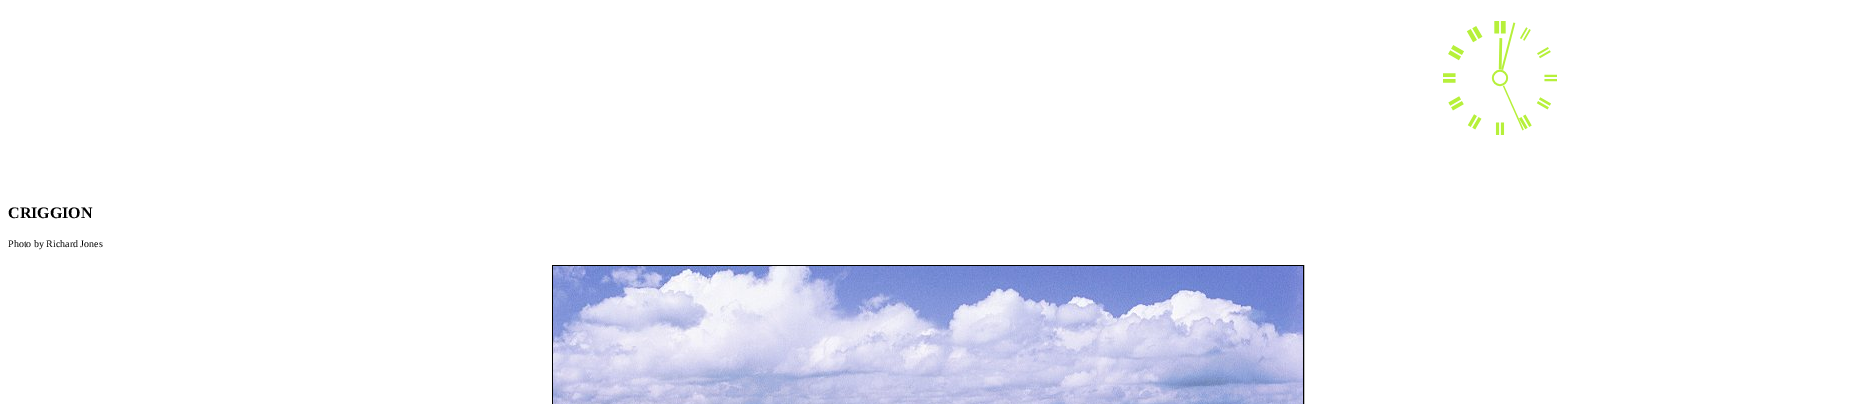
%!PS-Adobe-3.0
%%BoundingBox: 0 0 1856 404
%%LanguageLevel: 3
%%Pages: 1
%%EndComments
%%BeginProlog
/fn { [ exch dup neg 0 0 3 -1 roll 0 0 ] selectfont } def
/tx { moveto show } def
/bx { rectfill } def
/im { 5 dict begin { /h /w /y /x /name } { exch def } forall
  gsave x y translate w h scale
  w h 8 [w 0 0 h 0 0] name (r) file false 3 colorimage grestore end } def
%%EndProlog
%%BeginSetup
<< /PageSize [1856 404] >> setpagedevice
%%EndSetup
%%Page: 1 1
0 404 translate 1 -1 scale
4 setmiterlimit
1 setgray
0 0 1856 404 bx
(image0.raw) 1443 21 114 114 im
(image1.raw) 1498 22 26 109 im
/LiberationSerif-Bold 16 fn
0 setgray
(CRIGGION) 8 218 tx
/LiberationSerif-Regular 10 fn
(Photo by Richard Jones) 8 247 tx
552.5 265.5 751 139 rectstroke
(image2.raw) 553 266 750 138 im
showpage
%%EOF
